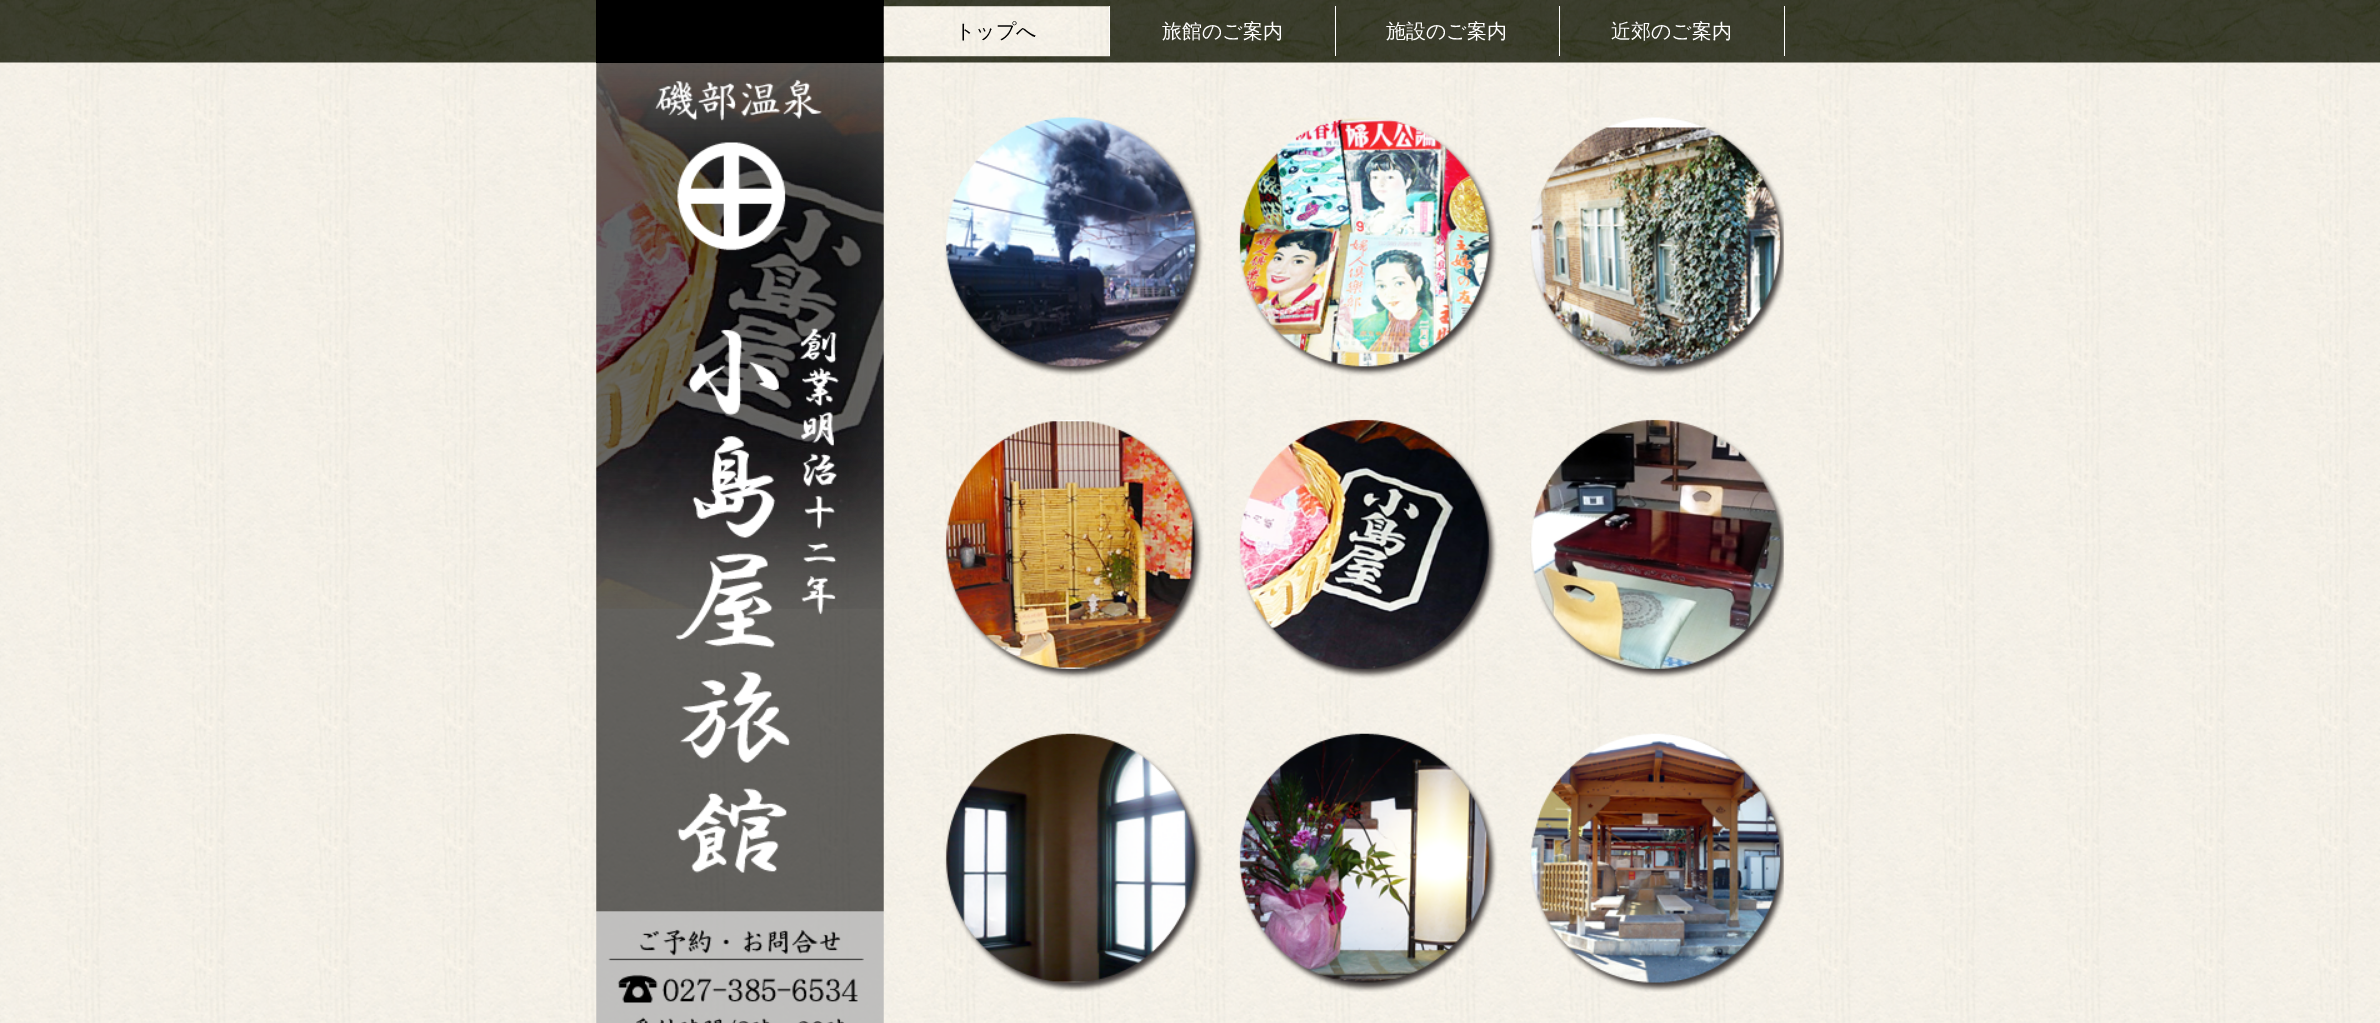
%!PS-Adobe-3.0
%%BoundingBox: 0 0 2380 1023
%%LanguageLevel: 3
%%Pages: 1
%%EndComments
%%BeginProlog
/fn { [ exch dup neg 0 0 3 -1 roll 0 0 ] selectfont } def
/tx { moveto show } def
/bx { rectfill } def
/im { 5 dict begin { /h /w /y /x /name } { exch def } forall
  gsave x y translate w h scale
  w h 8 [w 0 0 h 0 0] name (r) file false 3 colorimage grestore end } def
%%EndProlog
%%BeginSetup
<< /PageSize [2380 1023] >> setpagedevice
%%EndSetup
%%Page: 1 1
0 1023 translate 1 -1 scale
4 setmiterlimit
1 setgray
0 0 2380 1023 bx
(image0.raw) 0 62 2380 961 im
(image1.raw) 0 0 2380 63 im
0 setgray
596 0 288 63 bx
(image2.raw) 883 6 227 51 im
1 setgray
1109 6 1 50 bx
/WenQuanYiZenHei-Medium 20 fn
0 setgray
(トップへ) 955 38 tx
1 setgray
1335 6 1 50 bx
(旅館のご案内) 1162 38 tx
1559 6 1 50 bx
(施設のご案内) 1386 38 tx
1784 6 1 50 bx
(近郊のご案内) 1611 38 tx
(image3.raw) 596 63 288 960 im
(image4.raw) 945 117 839 875 im
showpage
%%EOF
